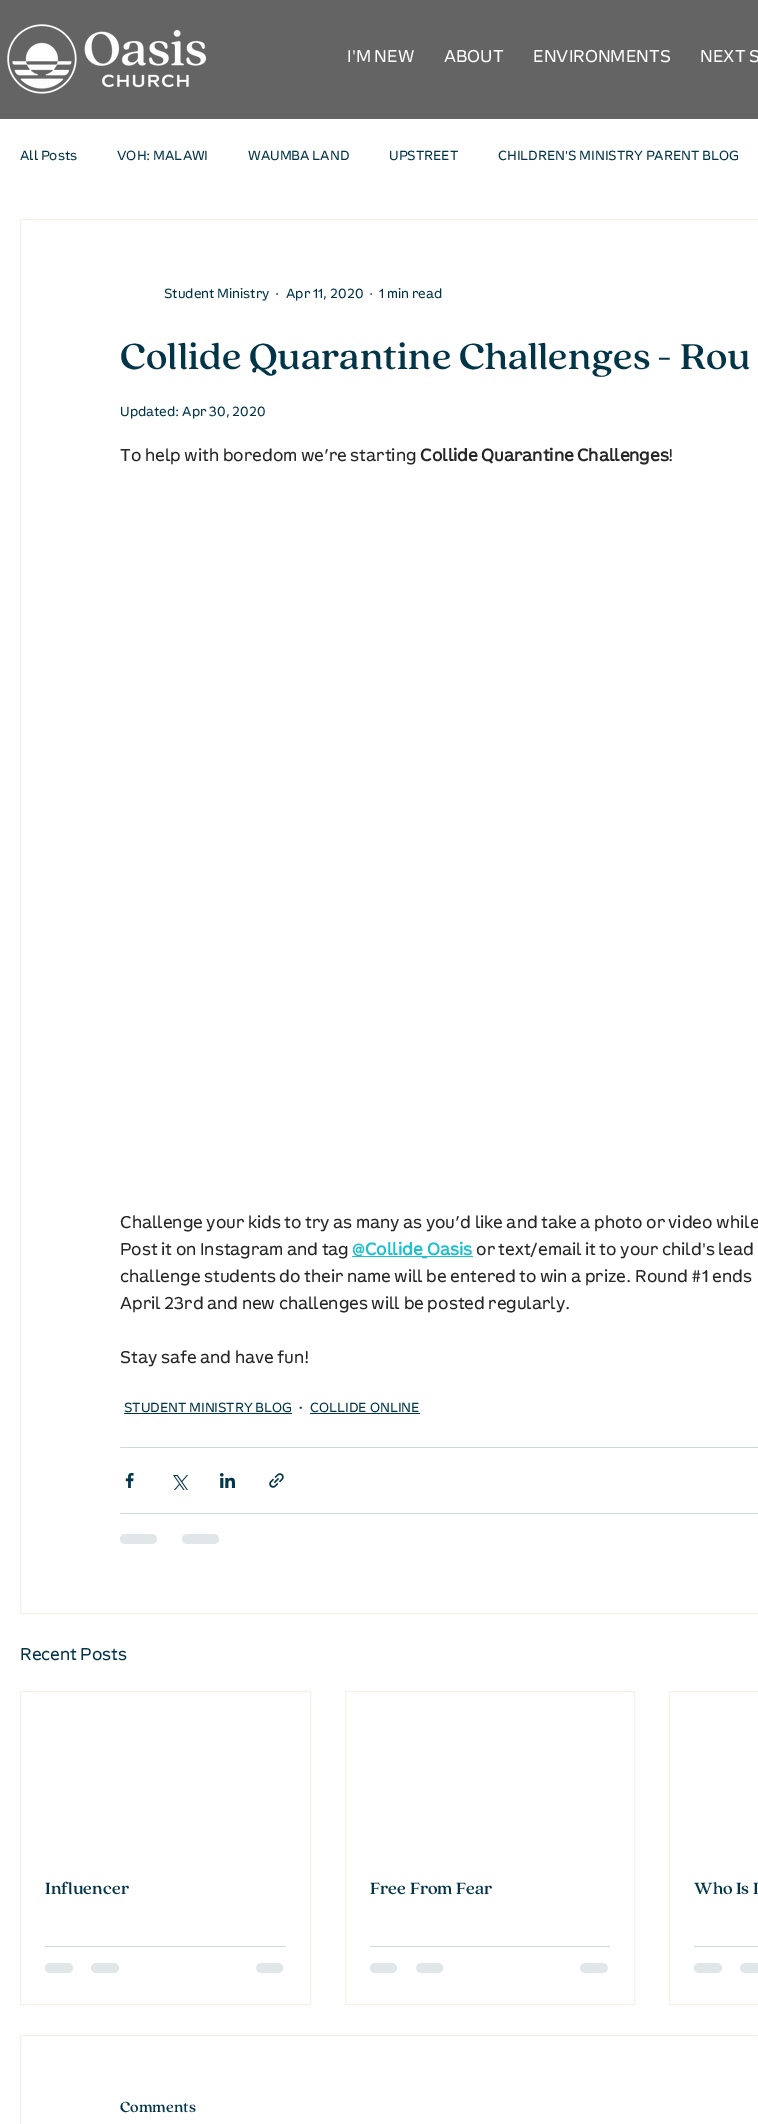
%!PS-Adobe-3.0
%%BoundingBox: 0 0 758 2124
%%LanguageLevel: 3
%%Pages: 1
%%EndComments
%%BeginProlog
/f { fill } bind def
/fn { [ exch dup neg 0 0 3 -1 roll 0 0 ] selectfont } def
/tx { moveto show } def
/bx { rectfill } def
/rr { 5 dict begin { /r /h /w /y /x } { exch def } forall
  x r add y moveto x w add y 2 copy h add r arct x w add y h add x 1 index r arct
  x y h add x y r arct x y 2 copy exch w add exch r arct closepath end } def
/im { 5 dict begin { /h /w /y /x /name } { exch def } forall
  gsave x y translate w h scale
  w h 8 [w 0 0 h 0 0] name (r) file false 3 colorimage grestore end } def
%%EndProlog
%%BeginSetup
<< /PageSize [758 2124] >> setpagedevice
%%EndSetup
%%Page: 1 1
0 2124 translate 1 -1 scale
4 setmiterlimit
1 setgray
0 0 758 2124 bx
0.396 0.392 0.392 setrgbcolor
0 0 758 119 bx
(image0.raw) 7 24 200 70 im
/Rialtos-Regular 18 fn
1 setgray
(I'M NEW) 347 62 tx
(ABOUT) 444 62 tx
(ENVIRONMENTS) 533 62 tx
(NEXT S) 700 62 tx
/Rialtos-Regular 14 fn
0.012 0.208 0.286 setrgbcolor
(All Posts) 20 160 tx
(VOH: MALAWI) 117 160 tx
(WAUMBA LAND) 248 160 tx
(UPSTREET) 389 160 tx
(CHILDREN'S MINISTRY PARENT BLOG) 498 160 tx
0.965 0.945 0.906 setrgbcolor
20.5 219.5 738 1394 rectstroke
0.012 0.208 0.286 setrgbcolor
(Student Ministry) 164 298 tx
(·) 275 298 tx
(Apr 11, 2020) 286 298 tx
(·) 369 298 tx
(1 min read) 379 298 tx
/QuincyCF-Medium 40 fn
(Collide Quarantine Challenges - Rou) 120 369 tx
/Rialtos-Regular 14 fn
(Updated: Apr 30, 2020) 120 416 tx
/Rialtos-Regular 18 fn
0.149 setgray
(To help with boredom we’re starting) 120 461 tx
/Rialtos-Bold 18 fn
(Collide Quarantine Challenges) 420 461 tx
/Rialtos-Regular 18 fn
(!) 668 461 tx
(Challenge your kids to try as many as you’d like and take a photo or video while) 120 1228 tx
(Post it on Instagram and tag) 120 1255 tx
0.114 0.761 0.808 setrgbcolor
352 1256 121 1 bx
/Rialtos-Bold 18 fn
(@Collide_Oasis) 352 1255 tx
/Rialtos-Regular 18 fn
0.149 setgray
(or text/email it to your child's lead) 476 1255 tx
(challenge students do their name will be entered to win a prize. Round #1 ends) 120 1282 tx
(April 23rd and new challenges will be posted regularly.) 120 1309 tx
(Stay safe and have fun!) 120 1363 tx
/Rialtos-Regular 14 fn
0.012 0.208 0.286 setrgbcolor
(STUDENT MINISTRY BLOG) 124 1412 tx
124 1413 168 1 bx
/Rialtos-Regular 18 fn
(·) 298 1413 tx
/Rialtos-Regular 14 fn
(COLLIDE ONLINE) 310 1412 tx
310 1413 110 1 bx
0.804 0.843 0.859 setrgbcolor
120 1447 638 1 bx
(image1.raw) 125 1473 9 15 im
(image2.raw) 173 1475 15 15 im
(image3.raw) 220 1473 15 15 im
(image4.raw) 269 1473 15 15 im
120 1513 638 1 bx
0.882 0.906 0.914 setrgbcolor
120 1534 37 10 5 rr f
182 1534 37 10 5 rr f
/Rialtos-Regular 18 fn
0.012 0.208 0.286 setrgbcolor
(Recent Posts) 20 1660 tx
0.965 0.945 0.906 setrgbcolor
20.5 1691.5 290 313 rectstroke
/QuincyCF-Medium 18 fn
0.012 0.208 0.286 setrgbcolor
(Influencer) 45 1894 tx
0.804 0.843 0.859 setrgbcolor
45 1946 241 1 bx
0.882 0.906 0.914 setrgbcolor
45 1963 28 10 5 rr f
91 1963 28 10 5 rr f
256 1963 27 10 5 rr f
0.965 0.945 0.906 setrgbcolor
345.5 1691.5 289 313 rectstroke
0.012 0.208 0.286 setrgbcolor
(Free From Fear) 370 1894 tx
0.804 0.843 0.859 setrgbcolor
370 1946 240 1 bx
0.882 0.906 0.914 setrgbcolor
370 1963 27 10 5 rr f
416 1963 27 10 5 rr f
580 1963 28 10 5 rr f
0.965 0.945 0.906 setrgbcolor
669.5 1691.5 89 313 rectstroke
0.012 0.208 0.286 setrgbcolor
(Who Is I) 694 1894 tx
0.804 0.843 0.859 setrgbcolor
694 1946 64 1 bx
0.882 0.906 0.914 setrgbcolor
694 1963 28 10 5 rr f
740 1963 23 10 5 rr f
0.965 0.945 0.906 setrgbcolor
20.5 2035.5 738 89 rectstroke
/QuincyCF-Medium 16 fn
0.012 0.208 0.286 setrgbcolor
(Comments) 120 2112 tx
showpage
%%EOF
